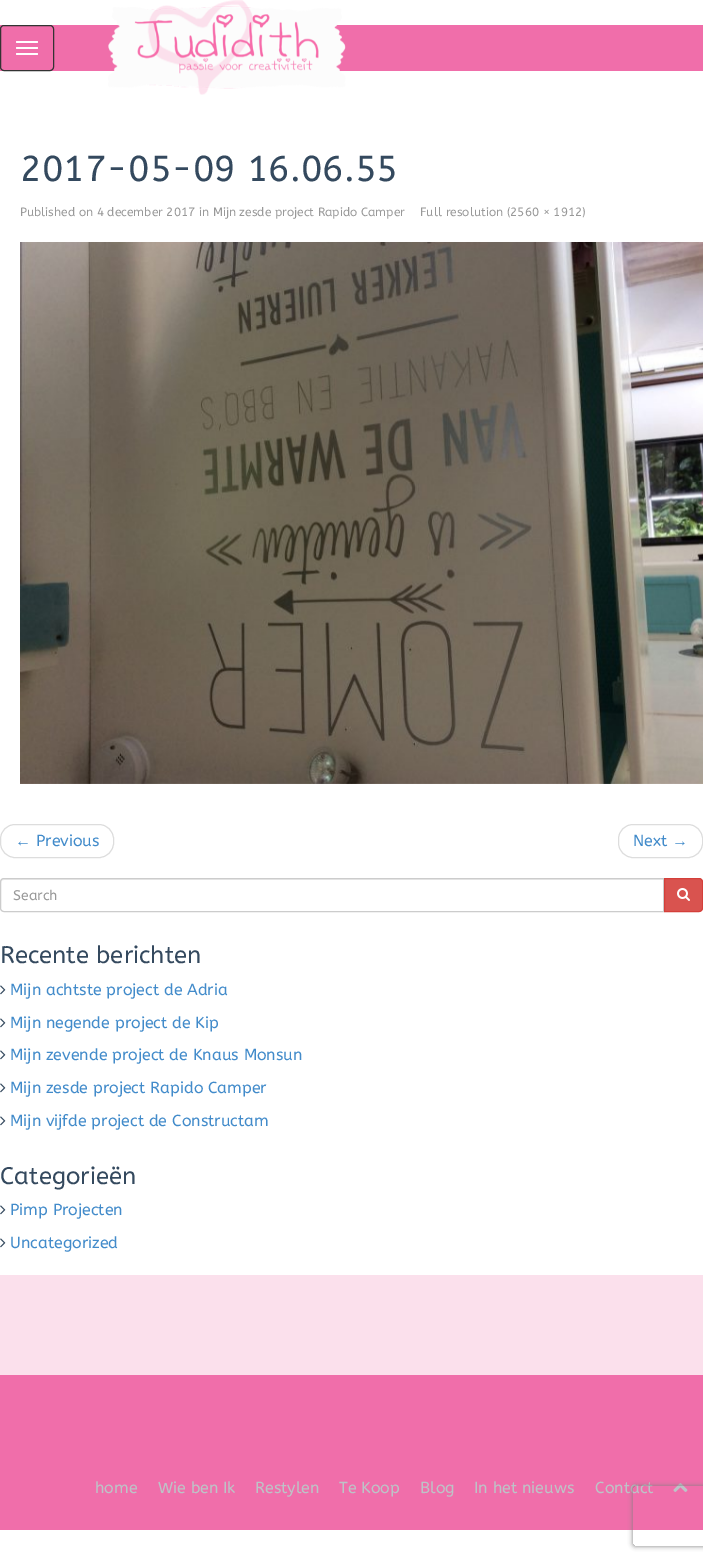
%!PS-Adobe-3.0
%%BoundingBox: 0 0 703 1560
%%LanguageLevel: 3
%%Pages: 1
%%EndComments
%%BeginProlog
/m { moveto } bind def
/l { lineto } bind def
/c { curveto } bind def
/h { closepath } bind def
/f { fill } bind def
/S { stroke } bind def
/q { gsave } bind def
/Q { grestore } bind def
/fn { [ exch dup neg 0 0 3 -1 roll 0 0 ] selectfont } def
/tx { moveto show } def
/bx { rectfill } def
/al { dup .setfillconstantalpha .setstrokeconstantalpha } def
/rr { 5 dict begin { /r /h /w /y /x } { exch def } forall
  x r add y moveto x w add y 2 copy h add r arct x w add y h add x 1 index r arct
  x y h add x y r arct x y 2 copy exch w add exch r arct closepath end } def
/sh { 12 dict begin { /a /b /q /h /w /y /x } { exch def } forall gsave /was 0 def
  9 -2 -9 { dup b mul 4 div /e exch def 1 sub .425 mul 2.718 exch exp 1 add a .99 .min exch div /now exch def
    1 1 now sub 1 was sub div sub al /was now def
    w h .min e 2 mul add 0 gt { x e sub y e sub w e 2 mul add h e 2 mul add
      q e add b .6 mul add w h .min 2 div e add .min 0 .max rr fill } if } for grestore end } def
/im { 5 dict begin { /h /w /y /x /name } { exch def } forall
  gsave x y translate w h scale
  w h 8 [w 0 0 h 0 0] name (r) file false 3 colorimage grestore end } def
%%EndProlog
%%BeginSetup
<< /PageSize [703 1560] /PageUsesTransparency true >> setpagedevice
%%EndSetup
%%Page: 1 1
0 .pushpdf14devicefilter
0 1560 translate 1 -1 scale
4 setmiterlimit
1 setgray
0 0 703 1560 bx
0.941 0.431 0.667 setrgbcolor
0 25 703 46 bx
0.2 setgray
0.5 25.5 53 45 3.5 rr S
1 setgray
16 41 22 2 1 rr f
16 47 22 2 1 rr f
16 53 22 2 1 rr f
(image0.raw) 108 0 238 95 im
/ABeeZee-Regular 36 fn
0.204 0.286 0.369 setrgbcolor
(2017-05-09 16.06.55) 20 181 tx
/ABeeZee-Regular 12 fn
0.6 setgray
(Published on 4 december 2017 in Mijn zesde project Rapido Camper) 20 216 tx
(Full resolution \(2560 × 1912\)) 420 216 tx
(image1.raw) 20 242 683 542 im
0.867 setgray
0.5 824.5 113 33 14.5 rr S
/LiberationSerif-Regular 16 fn
0.259 0.545 0.792 setrgbcolor
(←) 15 846 tx
/ABeeZee-Regular 16 fn
(Previous) 36 846 tx
0.867 setgray
618.5 824.5 84 33 14.5 rr S
0.259 0.545 0.792 setrgbcolor
(Next) 633 846 tx
/LiberationSerif-Regular 16 fn
(→) 672 846 tx
0.925 setgray
4 880 m 663 880 l 663 879 l 4 879 l 2 879 1 880 1 882 c 1 883 l 1 881 2 880 4 880 c h f
0.8 setgray
4 878.5 m 663.5 878.5 l 663.5 911.5 l 4 911.5 l 2 911.5 0.5 910 0.5 908 c 0.5 882 l 0.5 880 2 878.5 4 878.5 c h S
/ABeeZee-Regular 14 fn
0.6 setgray
(Search) 13 900 tx
0.851 0.325 0.31 setrgbcolor
664.5 878.5 m 699 878.5 l 701 878.5 702.5 880 702.5 882 c 702.5 908 l 702.5 910 701 911.5 699 911.5 c 664.5 911.5 l h q f Q
0.831 0.247 0.227 setrgbcolor
S
(image2.raw) 677 888 13 13 im
/ABeeZee-Regular 24 fn
0.204 0.286 0.369 setrgbcolor
(Recente berichten) 0 963 tx
(image3.raw) 0 985 6 10 im
/ABeeZee-Regular 16 fn
0.259 0.545 0.792 setrgbcolor
(Mijn achtste project de Adria) 10 995 tx
(image3.raw) 0 1018 6 10 im
(Mijn negende project de Kip) 10 1028 tx
(image3.raw) 0 1050 6 10 im
(Mijn zevende project de Knaus Monsun) 10 1060 tx
(image3.raw) 0 1083 6 10 im
(Mijn zesde project Rapido Camper) 10 1093 tx
(image3.raw) 0 1116 6 10 im
(Mijn vijfde project de Constructam) 10 1126 tx
/ABeeZee-Regular 24 fn
0.204 0.286 0.369 setrgbcolor
(Categorieën) 0 1184 tx
(image3.raw) 0 1205 6 10 im
/ABeeZee-Regular 16 fn
0.259 0.545 0.792 setrgbcolor
(Pimp Projecten) 10 1215 tx
(image3.raw) 0 1238 6 10 im
(Uncategorized) 10 1248 tx
0.984 0.878 0.925 setrgbcolor
0 1275 703 100 bx
0.941 0.431 0.667 setrgbcolor
0 1375 703 155 bx
0.741 0.765 0.78 setrgbcolor
(home) 95 1493 tx
(Wie ben Ik) 158 1493 tx
(Restylen) 255 1493 tx
(Te Koop) 339 1493 tx
(Blog) 420 1493 tx
(In het nieuws) 474 1493 tx
(Contact) 595 1493 tx
(image4.raw) 673 1483 15 9 im
q
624 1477 m 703 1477 l 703 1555 l 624 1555 l h 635 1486 m 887 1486 l 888 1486 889 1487 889 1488 c 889 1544 l 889 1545 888 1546 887 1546 c 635 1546 l 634 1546 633 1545 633 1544 c 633 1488 l 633 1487 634 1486 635 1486 c h eoclip newpath
0.502 setgray
633 1486 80 60 2 2.5 1 sh
Q
.poppdf14devicefilter showpage
%%EOF
